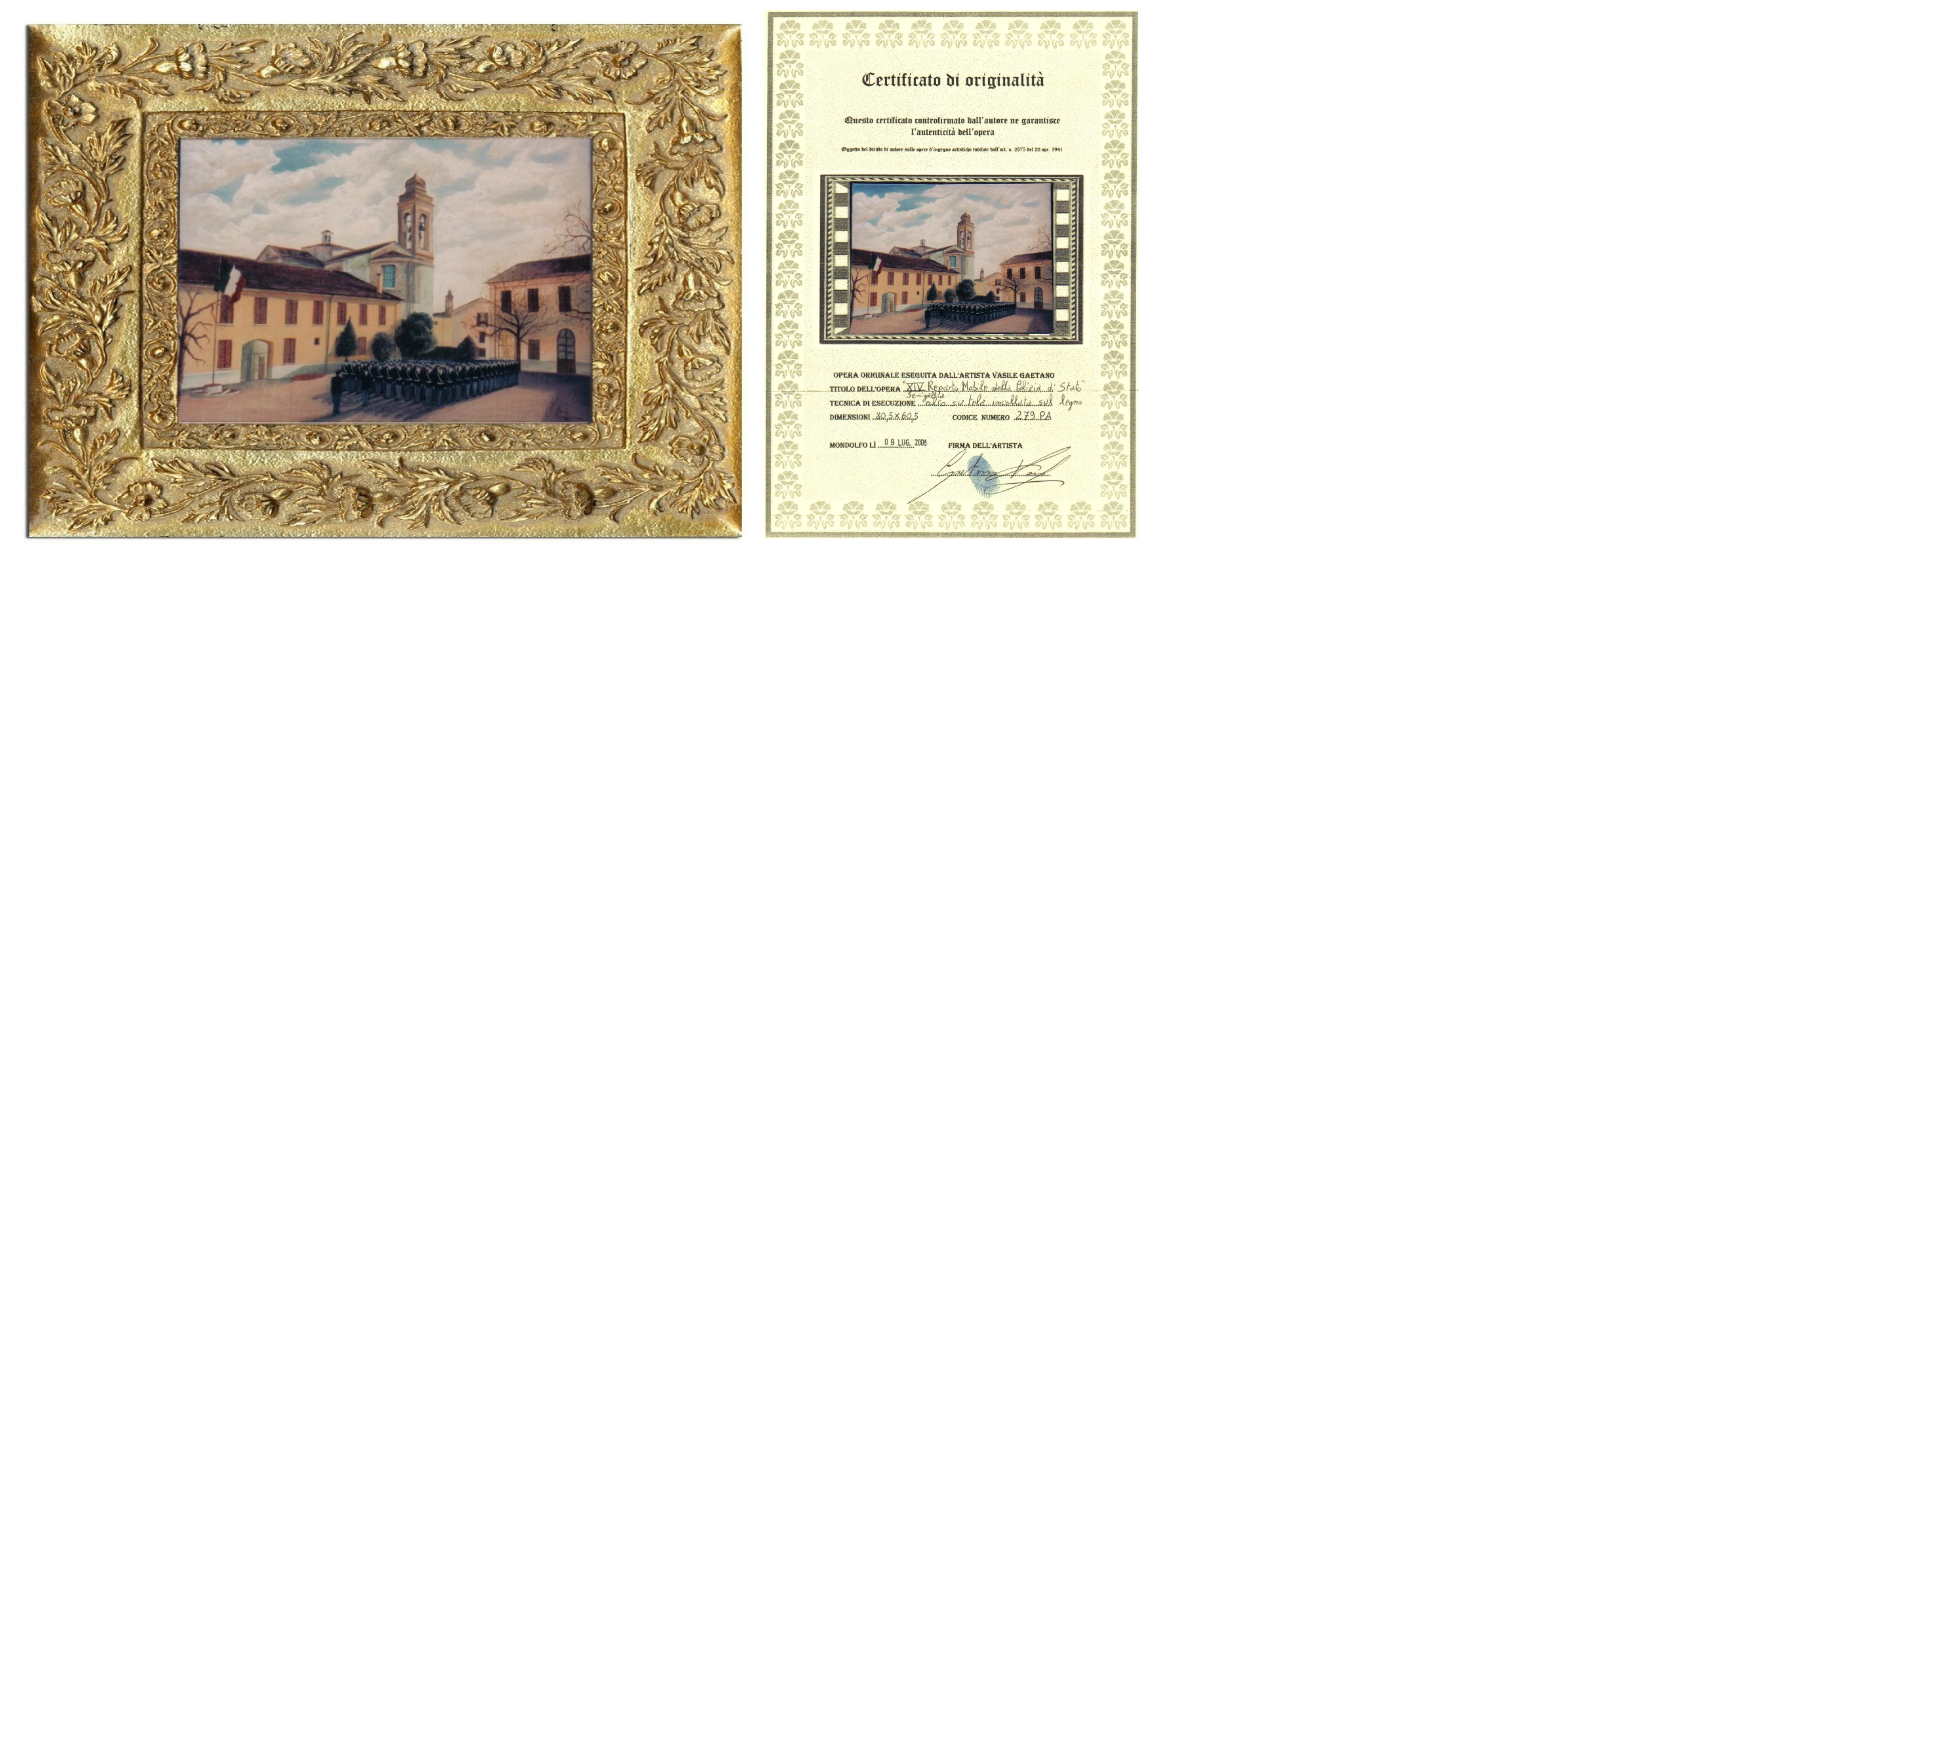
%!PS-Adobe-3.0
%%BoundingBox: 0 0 1956 1754
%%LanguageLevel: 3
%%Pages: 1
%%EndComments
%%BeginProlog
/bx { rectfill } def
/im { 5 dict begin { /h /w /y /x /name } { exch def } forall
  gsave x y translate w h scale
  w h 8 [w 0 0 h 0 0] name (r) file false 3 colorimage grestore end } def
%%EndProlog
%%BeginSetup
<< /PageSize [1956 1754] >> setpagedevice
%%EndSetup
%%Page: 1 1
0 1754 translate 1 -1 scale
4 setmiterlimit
1 setgray
0 0 1956 1754 bx
(image0.raw) 23 19 726 526 im
(image1.raw) 763 10 376 529 im
showpage
%%EOF
